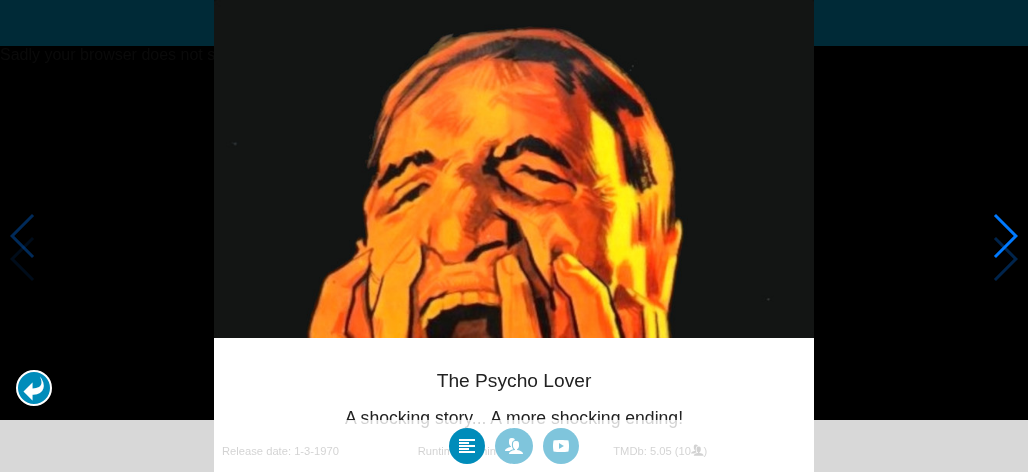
%!PS-Adobe-3.0
%%BoundingBox: 0 0 1028 472
%%LanguageLevel: 3
%%Pages: 1
%%EndComments
%%BeginProlog
/bx { rectfill } def
/im { 5 dict begin { /h /w /y /x /name } { exch def } forall
  gsave x y translate w h scale
  w h 8 [w 0 0 h 0 0] name (r) file false 3 colorimage grestore end } def
%%EndProlog
%%BeginSetup
<< /PageSize [1028 472] >> setpagedevice
%%EndSetup
%%Page: 1 1
0 472 translate 1 -1 scale
4 setmiterlimit
1 setgray
0 0 1028 472 bx
(image0.raw) 0 0 1028 472 im
showpage
%%EOF
